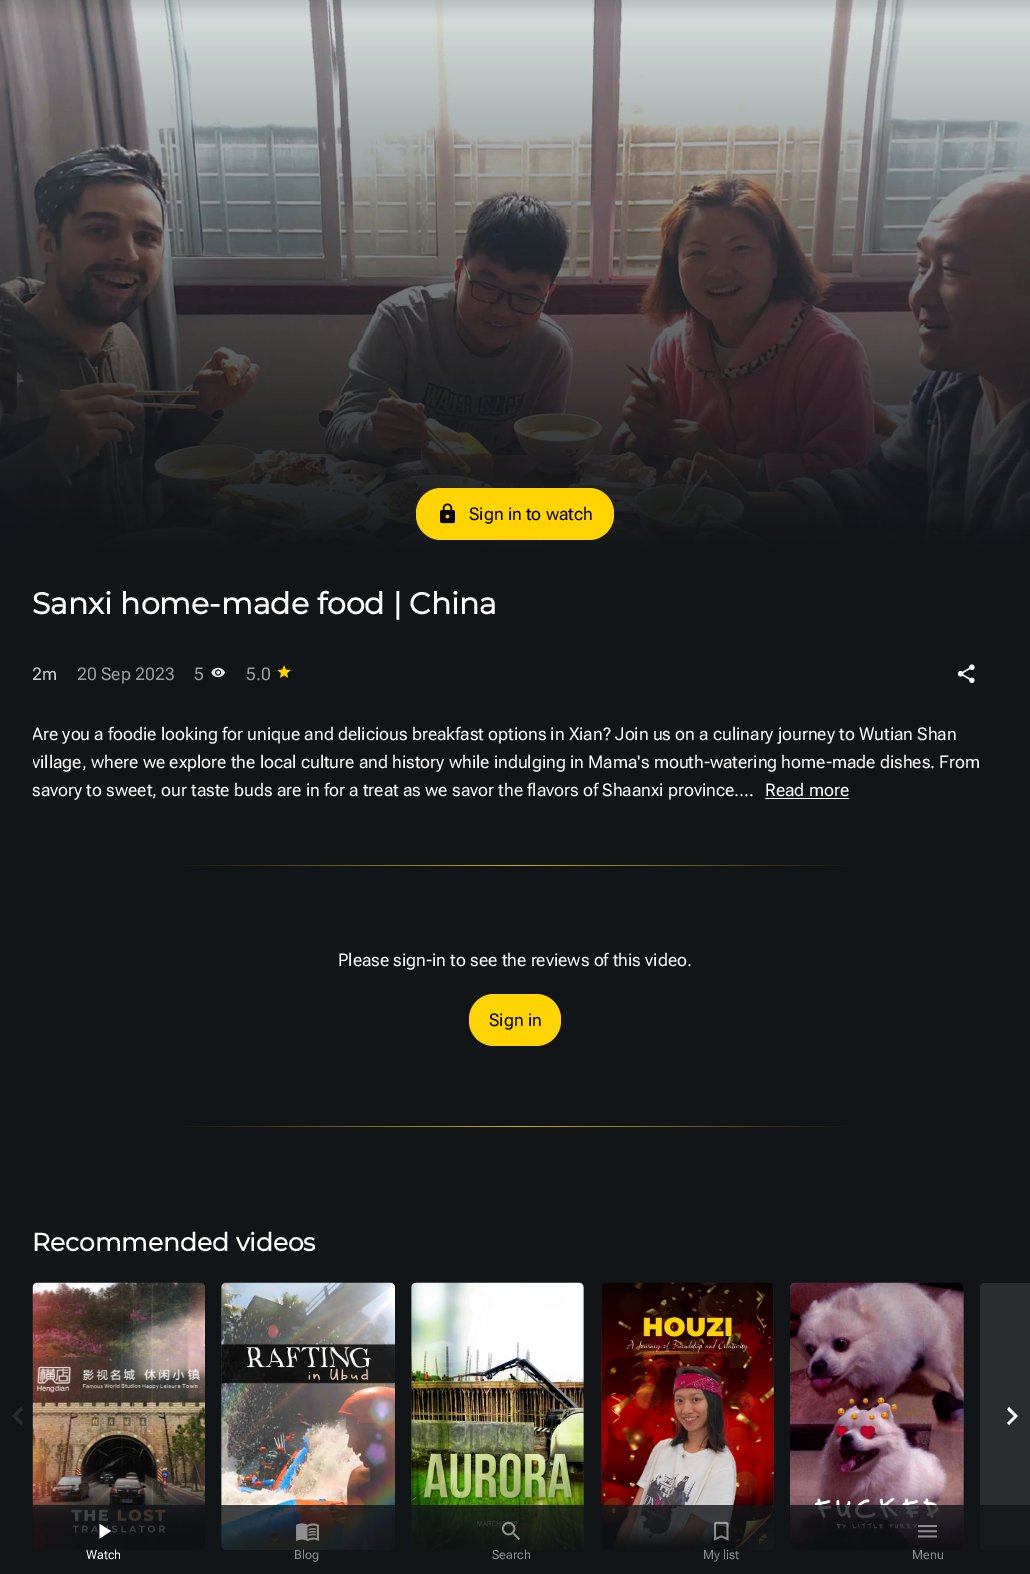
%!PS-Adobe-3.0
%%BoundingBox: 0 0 1030 1574
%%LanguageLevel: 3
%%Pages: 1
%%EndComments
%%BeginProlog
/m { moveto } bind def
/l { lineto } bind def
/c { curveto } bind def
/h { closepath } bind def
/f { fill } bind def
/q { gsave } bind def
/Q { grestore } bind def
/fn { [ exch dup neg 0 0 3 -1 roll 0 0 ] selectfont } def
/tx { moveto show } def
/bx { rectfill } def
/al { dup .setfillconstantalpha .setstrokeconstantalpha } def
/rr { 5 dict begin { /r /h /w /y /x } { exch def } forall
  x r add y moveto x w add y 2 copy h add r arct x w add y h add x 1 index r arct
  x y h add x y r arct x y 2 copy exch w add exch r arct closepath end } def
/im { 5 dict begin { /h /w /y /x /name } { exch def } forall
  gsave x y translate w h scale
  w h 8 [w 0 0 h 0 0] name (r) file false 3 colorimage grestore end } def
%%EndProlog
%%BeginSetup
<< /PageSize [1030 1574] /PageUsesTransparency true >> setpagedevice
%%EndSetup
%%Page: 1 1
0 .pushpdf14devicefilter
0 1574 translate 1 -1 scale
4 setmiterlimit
0.071 0.082 0.094 setrgbcolor
0 0 1030 1574 bx
(image0.raw) 0 0 1030 550 im
1 0.831 0 setrgbcolor
416 488 198 52 25 rr f
(image1.raw) 440 503 15 21 im
/RobotoFlex-Regular 17.5 fn
0 setgray
(Sign in to watch) 469 520 tx
/Montserrat-Bold 30 fn
1 setgray
(Sanxi home-made food | China) 32 614 tx
/RobotoFlex-Regular 17.5 fn
0.812 setgray
(2m) 32 680 tx
0.612 setgray
(20 Sep 2023) 77 680 tx
(5) 194 680 tx
(image2.raw) 211 667 14 11 im
(5.0) 246 680 tx
(image3.raw) 277 665 14 13 im
(image4.raw) 957 664 18 19 im
q
33 580 965 225 rectclip
1 setgray
(Are you a foodie looking for unique and delicious breakfast options in Xian? Join us on a culinary journey to Wutian Shan) 32 740 tx
(village, where we explore the local culture and history while indulging in Mama's mouth-watering home-made dishes. From) 32 768 tx
Q
1 setgray
(savory to sweet, our taste buds are in for a treat as we savor the flavors of Shaanxi province.…) 32 796 tx
(Read more) 765 796 tx
765 798 84 1 bx
q 178 865 m 853 865 l 853 866 l 178 866 l h clip newpath
<< /ShadingType 2 /ColorSpace /DeviceRGB /Coords [178 866 853 866] /Extend [true true] /Function << /FunctionType 3 /Domain [0 1] /Functions [<< /FunctionType 2 /Domain [0 1] /C0 [0.071 0.082 0.094] /C1 [0.816 0.682 0.02] /N 1 >> << /FunctionType 2 /Domain [0 1] /C0 [0.816 0.682 0.02] /C1 [0.071 0.082 0.094] /N 1 >>] /Bounds [0.5] /Encode [0 1 0 1] >> >> shfill Q
(Please sign-in to see the reviews of this video.) 338 966 tx
1 0.831 0 setrgbcolor
469 994 92 52 25 rr f
0 setgray
(Sign in) 489 1026 tx
q 178 1126 m 853 1126 l 853 1127 l 178 1127 l h clip newpath
<< /ShadingType 2 /ColorSpace /DeviceRGB /Coords [178 1127 853 1127] /Extend [true true] /Function << /FunctionType 3 /Domain [0 1] /Functions [<< /FunctionType 2 /Domain [0 1] /C0 [0.071 0.082 0.094] /C1 [0.816 0.682 0.02] /N 1 >> << /FunctionType 2 /Domain [0 1] /C0 [0.816 0.682 0.02] /C1 [0.071 0.082 0.094] /N 1 >>] /Bounds [0.5] /Encode [0 1 0 1] >> >> shfill Q
/Montserrat-Bold 25 fn
1 setgray
(Recommended videos) 32 1251 tx
0.165 0.173 0.184 setrgbcolor
23 1423 m 16.5 1416 l 23 1409.5 l 21 1407 l 12 1416 l 21 1425 l h f
(image5.raw) 32 1282 173 268 im
0.1 al
1 setgray
221 1283 174 267 5 rr f
1 al
(image6.raw) 221 1282 174 268 im
0.1 al
411 1283 173 267 5 rr f
1 al
(image7.raw) 411 1282 173 268 im
0.1 al
601 1283 173 267 5 rr f
1 al
(image8.raw) 601 1282 173 268 im
0.1 al
790 1283 174 267 5 rr f
1 al
(image9.raw) 790 1282 174 268 im
0.1 al
985 1283 m 1030 1283 l 1030 1550 l 985 1550 l 982 1550 980 1548 980 1545 c 980 1288 l 980 1285 982 1283 985 1283 c h f
1 al
1007 1423 m 1014 1416 l 1007 1409.5 l 1009 1407 l 1018 1416 l 1009 1425 l h f
0.8 al
0.071 0.082 0.094 setrgbcolor
32 1505 998 45 bx
1 al
1 setgray
99.5 1524 m 99.5 1538.5 l 111 1531 l h f
/RobotoFlex-Regular 12.5 fn
(Watch) 86 1559 tx
(image10.raw) 296 1523 23 18 im
0.537 0.541 0.549 setrgbcolor
(Blog) 294 1559 tx
(image11.raw) 501 1521 19 19 im
(Search) 492 1559 tx
(image12.raw) 713 1521 16 20 im
(My list) 703 1559 tx
(image13.raw) 918 1525 19 13 im
(Menu) 912 1559 tx
.poppdf14devicefilter showpage
%%EOF
